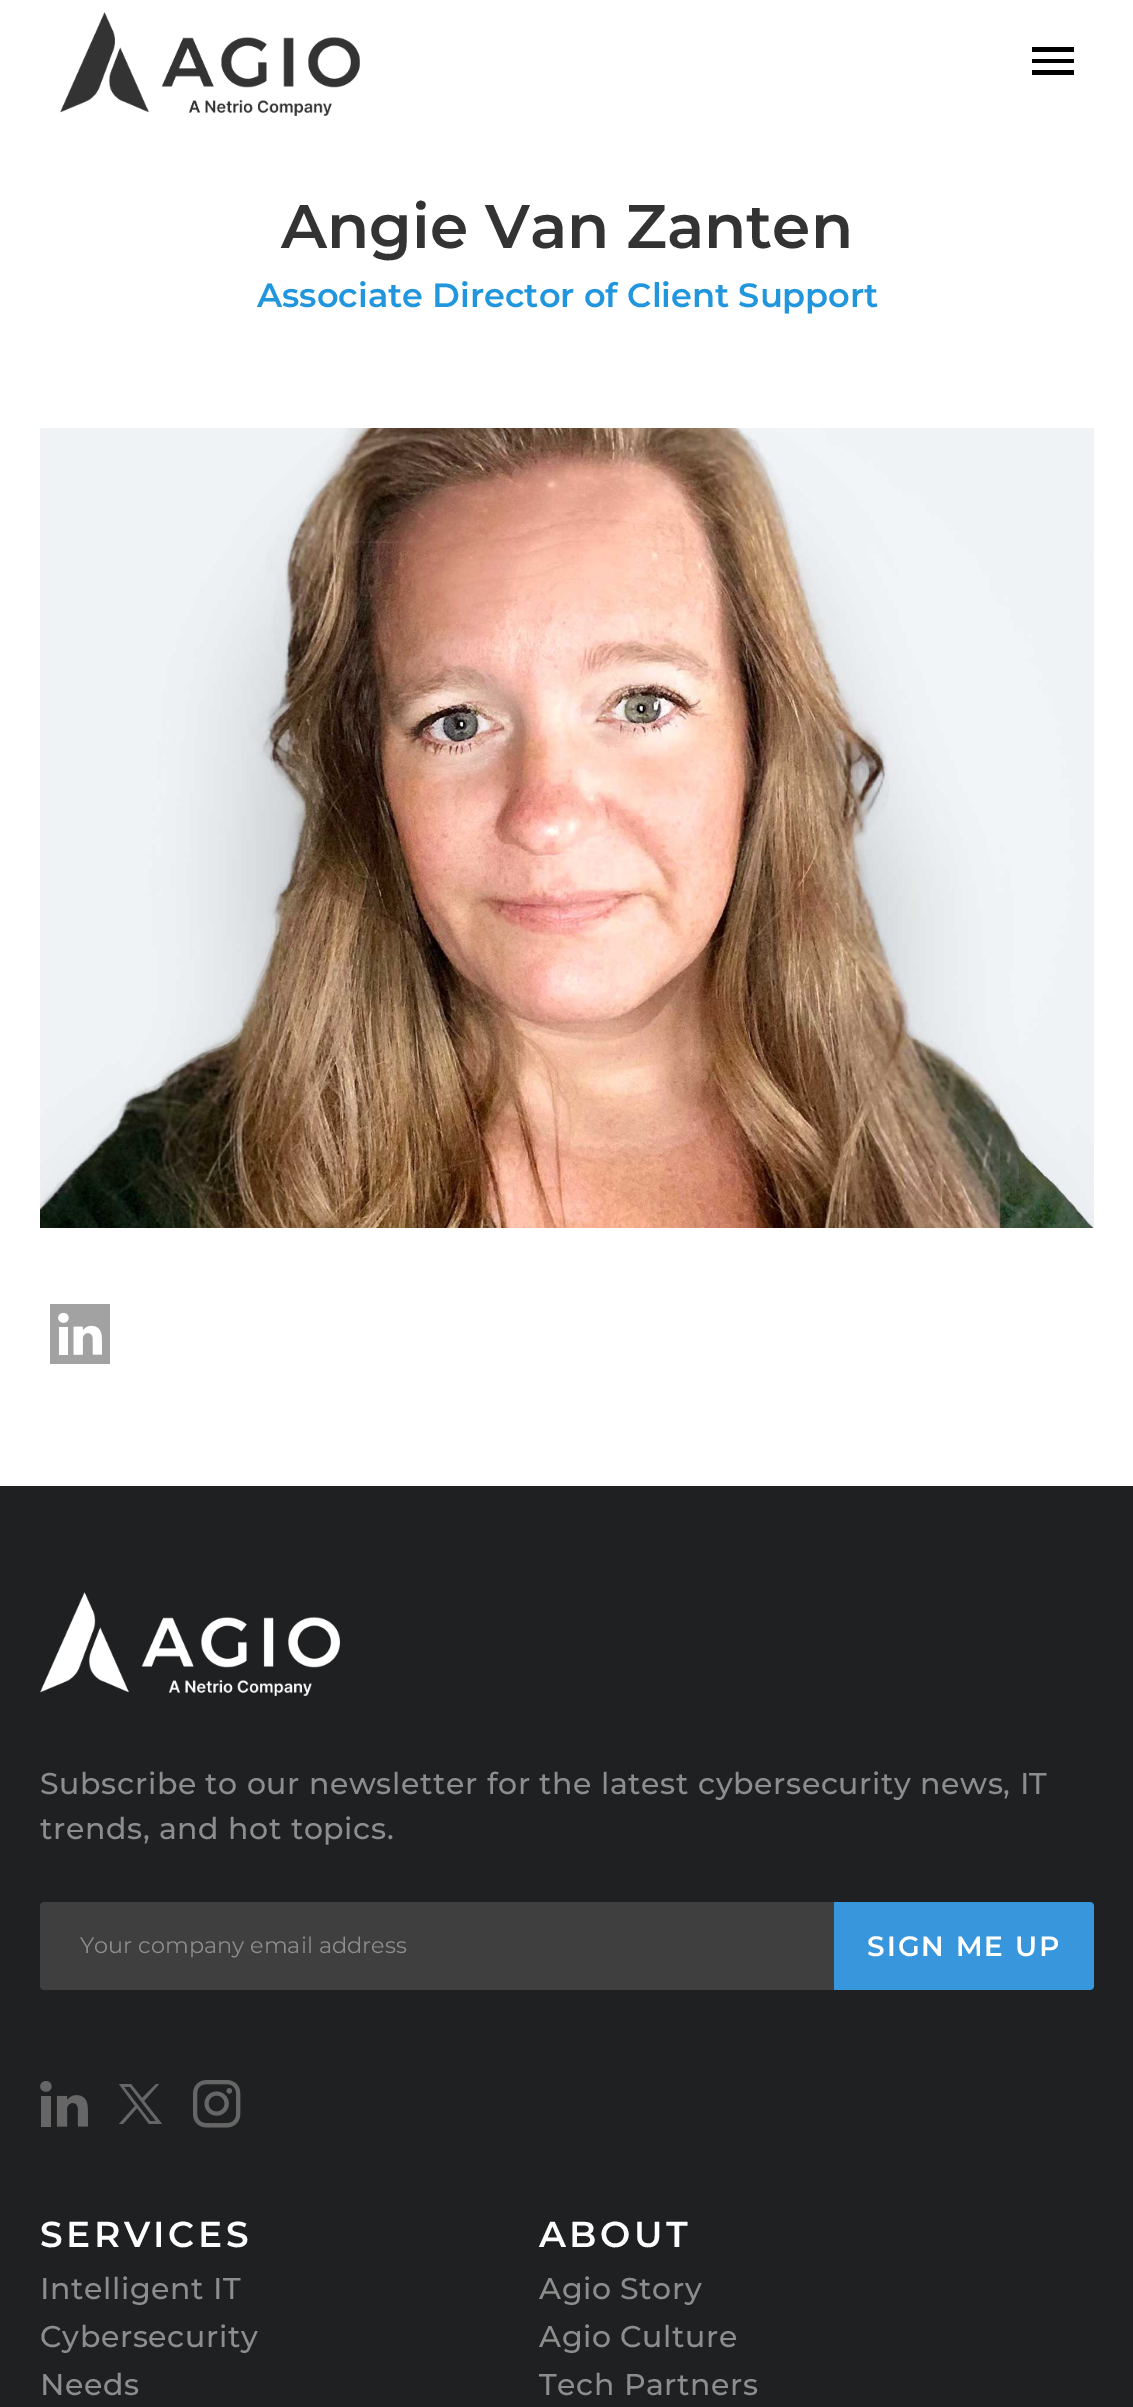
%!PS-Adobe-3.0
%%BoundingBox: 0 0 1133 2407
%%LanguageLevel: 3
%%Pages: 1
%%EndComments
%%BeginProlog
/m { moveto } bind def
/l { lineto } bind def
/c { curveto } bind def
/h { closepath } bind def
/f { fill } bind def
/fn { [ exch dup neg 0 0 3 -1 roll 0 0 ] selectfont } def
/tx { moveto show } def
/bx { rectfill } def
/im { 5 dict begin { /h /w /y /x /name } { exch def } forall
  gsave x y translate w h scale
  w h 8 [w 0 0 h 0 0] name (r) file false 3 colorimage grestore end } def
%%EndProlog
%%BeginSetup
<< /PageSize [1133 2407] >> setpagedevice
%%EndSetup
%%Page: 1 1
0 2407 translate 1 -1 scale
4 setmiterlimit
1 setgray
0 0 1133 2407 bx
(image0.raw) 60 12 300 104 im
0 setgray
1032 75 m 1074 75 l 1074 70 l 1032 70 l h 1032 63 m 1074 63 l 1074 59 l 1032 59 l h 1032 47 m 1032 52 l 1074 52 l 1074 47 l h f
/Montserrat-SemiBold 61.5 fn
0.2 setgray
(Angie Van Zanten) 281 248 tx
/Montserrat-SemiBold 33.6 fn
0.133 0.588 0.867 setrgbcolor
(Associate Director of Client Support) 257 307 tx
(image1.raw) 40 428 1054 800 im
0.635 setgray
50 1304 60 60 bx
(image2.raw) 58 1312 44 43 im
0.122 0.125 0.129 setrgbcolor
0 1486 1133 921 bx
(image3.raw) 40 1592 300 104 im
/Montserrat-Medium 30 fn
0.553 setgray
40 1794 m 0.62 0 (Subscribe to our newsletter for the latest cybersecurity news, IT) ashow
40 1839 m 0.62 0 (trends, and hot topics.) ashow
0.247 setgray
44 1902 m 834 1902 l 834 1990 l 44 1990 l 42 1990 40 1988 40 1986 c 40 1906 l 40 1904 42 1902 44 1902 c h f
/Montserrat-Regular 22.4 fn
0.553 setgray
(Your company email address) 80 1953 tx
0.22 0.588 0.867 setrgbcolor
834 1902 m 1090 1902 l 1092 1902 1094 1904 1094 1906 c 1094 1986 l 1094 1988 1092 1990 1090 1990 c 834 1990 l h f
/Montserrat-SemiBold 28 fn
1 setgray
867 1956 m 2 0 (SIGN ME UP) ashow
(image4.raw) 40 2081 48 46 im
0.4 setgray
119 2084 m 135 2106 l 119 2124 l 123 2124 l 137 2108 l 149 2124 l 162 2124 l 144 2101 l 159 2084 l 156 2084 l 142 2098 l 131 2084 l h 124 2087 m 130 2087 l 156 2121 l 150 2121 l h f
(image5.raw) 193 2080 48 48 im
/Montserrat-SemiBold 36 fn
1 setgray
40 2247 m 3.5 0 (SERVICES) ashow
/Montserrat-Medium 30 fn
0.553 setgray
40 2299 m 0.6 0 (Intelligent IT) ashow
40 2347 m 0.6 0 (Cybersecurity) ashow
40 2395 m 0.6 0 (Needs) ashow
/Montserrat-SemiBold 36 fn
1 setgray
539 2247 m 3.5 0 (ABOUT) ashow
/Montserrat-Medium 30 fn
0.553 setgray
539 2299 m 0.6 0 (Agio Story) ashow
539 2347 m 0.6 0 (Agio Culture) ashow
539 2395 m 0.6 0 (Tech Partners) ashow
showpage
%%EOF
